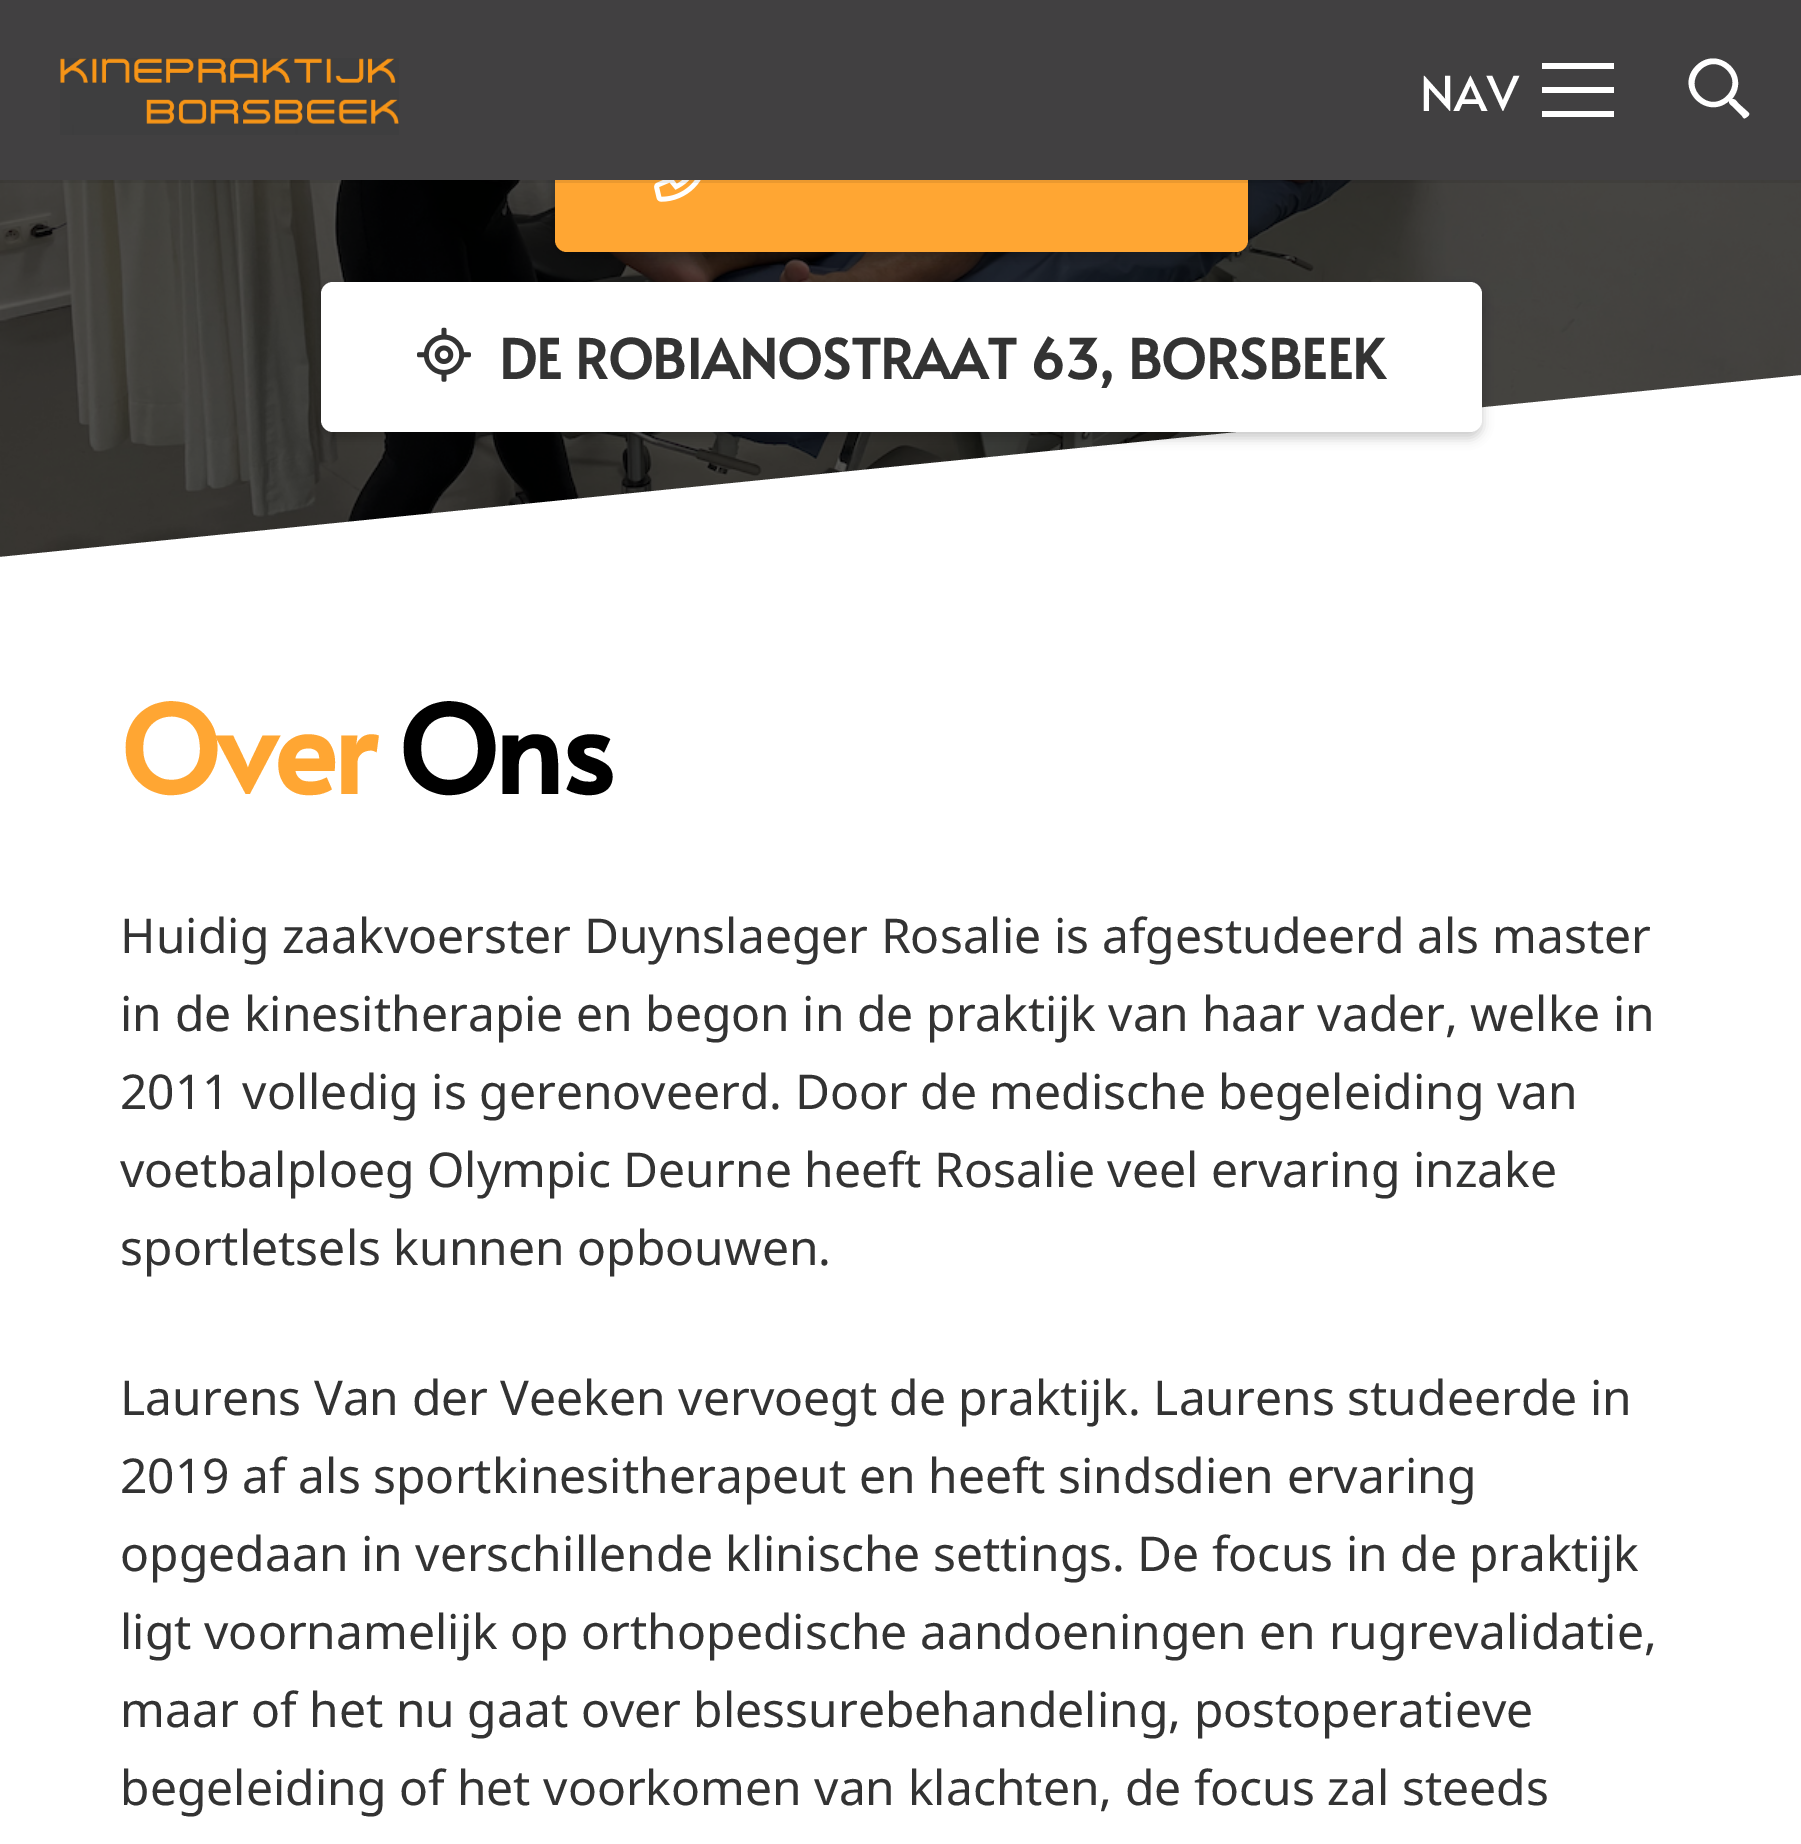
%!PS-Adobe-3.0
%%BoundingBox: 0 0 1801 1844
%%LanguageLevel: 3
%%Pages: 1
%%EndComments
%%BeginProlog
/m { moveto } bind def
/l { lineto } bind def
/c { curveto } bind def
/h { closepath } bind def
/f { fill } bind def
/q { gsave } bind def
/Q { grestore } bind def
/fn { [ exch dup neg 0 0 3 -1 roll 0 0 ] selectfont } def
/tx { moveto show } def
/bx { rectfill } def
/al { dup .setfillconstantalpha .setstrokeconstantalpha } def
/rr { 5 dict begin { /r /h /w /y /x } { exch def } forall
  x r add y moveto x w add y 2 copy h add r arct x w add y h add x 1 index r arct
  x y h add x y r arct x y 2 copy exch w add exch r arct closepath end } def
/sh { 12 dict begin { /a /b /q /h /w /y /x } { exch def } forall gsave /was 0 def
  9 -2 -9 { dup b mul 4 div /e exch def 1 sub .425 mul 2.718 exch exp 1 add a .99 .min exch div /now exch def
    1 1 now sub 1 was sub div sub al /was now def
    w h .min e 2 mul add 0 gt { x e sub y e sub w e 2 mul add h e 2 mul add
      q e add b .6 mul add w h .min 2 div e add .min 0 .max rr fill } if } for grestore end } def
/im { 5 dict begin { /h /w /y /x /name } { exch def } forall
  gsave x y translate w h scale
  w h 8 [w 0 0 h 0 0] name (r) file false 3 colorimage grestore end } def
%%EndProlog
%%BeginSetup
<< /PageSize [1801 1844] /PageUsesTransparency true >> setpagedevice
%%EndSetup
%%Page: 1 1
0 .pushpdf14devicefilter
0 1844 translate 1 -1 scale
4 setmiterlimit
1 setgray
0 0 1801 1844 bx
(image1.raw) 0 180 1801 377 im
0 setgray
555 108 693 150 12 5.5 0.2 sh
1 0.651 0.2 setrgbcolor
555 102 693 150 12 rr f
(image2.raw) 654 180 47 22 im
0.08 al
0 setgray
0 180 1801 3 bx
1 al
0.255 0.251 0.255 setrgbcolor
0 0 1801 180 bx
(image0.raw) 60 58 339 77 im
/Alata-Regular 48 fn
1 setgray
(NAV) 1420 111 tx
1542 87 72 6 bx
1542 63 72 6 bx
1542 111 72 6 bx
1749 113 m 1750 115 1748 116 1747 117 c 1744 119 1744 119 1742 116 c 1732 106 l 1730 104 1729 104 1729 101 c 1706 121 1674 88 1696 66 c 1718 44 1752 75 1732 99 c 1736 99 1736 101 1739 104 c h 1700 96 m 1718 114 1744 87 1727 70 c 1709 52 1683 79 1700 96 c h f
q
0 375 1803 186 rectclip
0 557 m 0 606 l 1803 606 l 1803 375 l h f
Q
0 setgray
321 288 1161 150 12 5.5 0.2 sh
1 setgray
321 282 1161 150 12 rr f
(image3.raw) 417 327 54 55 im
/Alata-Bold 54 fn
0.2 setgray
(DE ROBIANOSTRAAT 63, BORSBEEK) 499 379 tx
/Alata-Bold 120 fn
1 0.651 0.2 setrgbcolor
120 794 m -3.5 0 (Over) ashow
0 setgray
398 794 m -3.5 0 (Ons) ashow
/NotoSans-Regular 48 fn
0.2 setgray
(Huidig zaakvoerster Duynslaeger Rosalie is afgestudeerd als master) 120 953 tx
(in de kinesitherapie en begon in de praktijk van haar vader, welke in) 120 1031 tx
(2011 volledig is gerenoveerd. Door de medische begeleiding van) 120 1109 tx
(voetbalploeg Olympic Deurne heeft Rosalie veel ervaring inzake) 120 1187 tx
(sportletsels kunnen opbouwen.) 120 1265 tx
(Laurens Van der Veeken vervoegt de praktijk. Laurens studeerde in) 120 1415 tx
(2019 af als sportkinesitherapeut en heeft sindsdien ervaring) 120 1493 tx
(opgedaan in verschillende klinische settings. De focus in de praktijk) 120 1571 tx
(ligt voornamelijk op orthopedische aandoeningen en rugrevalidatie,) 120 1649 tx
(maar of het nu gaat over blessurebehandeling, postoperatieve) 120 1727 tx
(begeleiding of het voorkomen van klachten, de focus zal steeds) 120 1805 tx
.poppdf14devicefilter showpage
%%EOF
